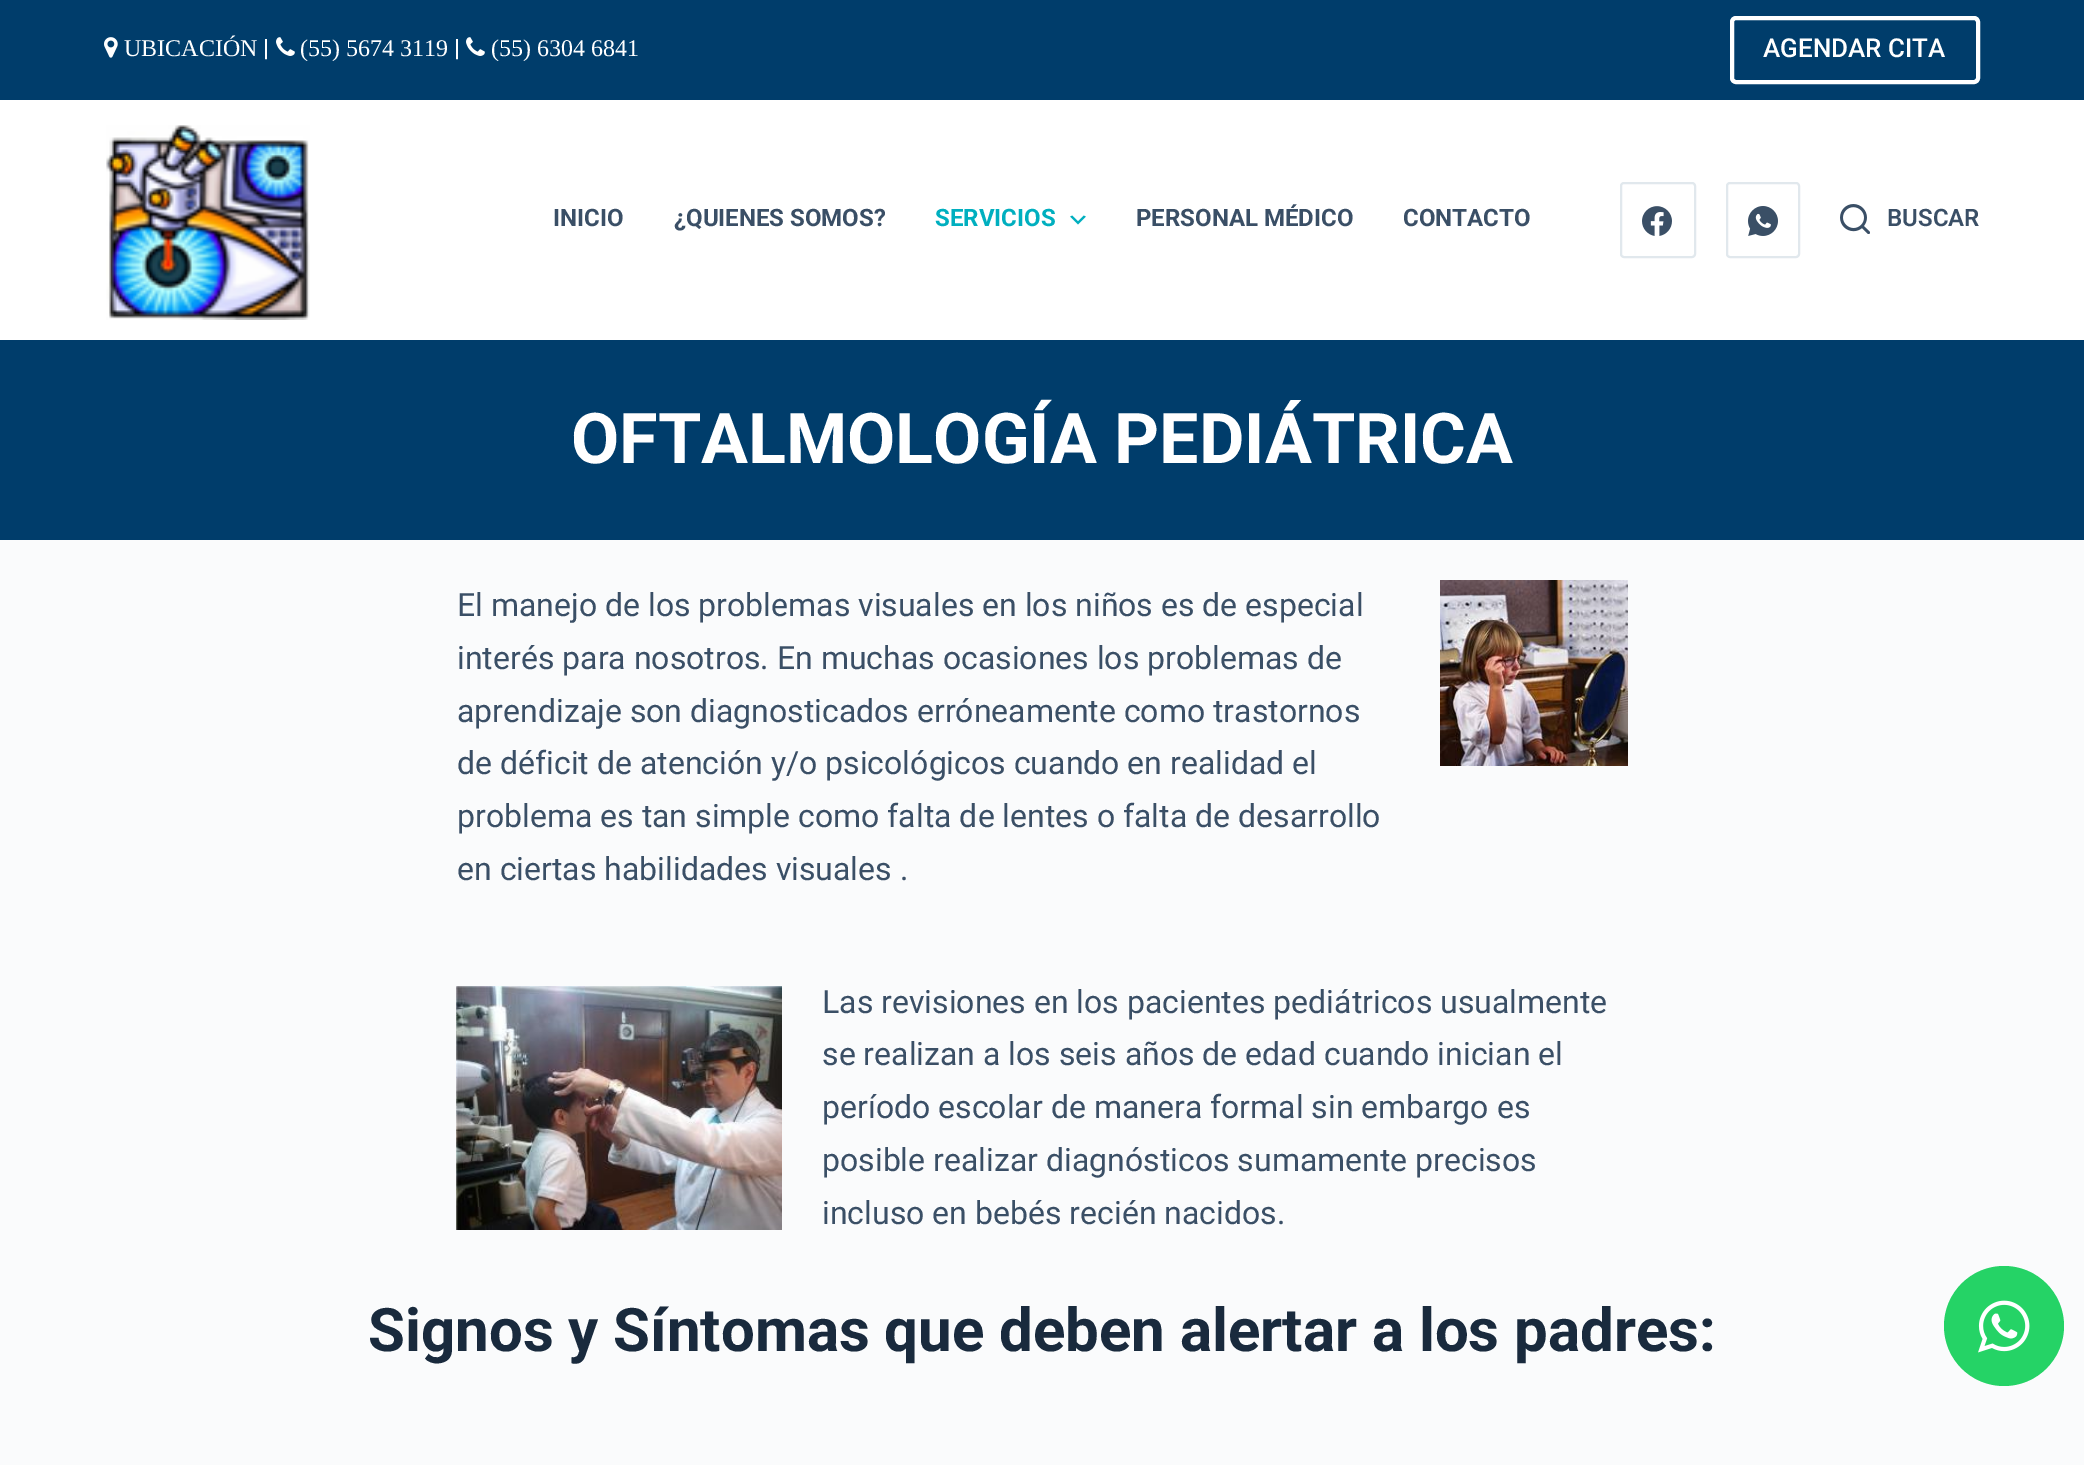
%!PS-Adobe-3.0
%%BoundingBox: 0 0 2084 1465
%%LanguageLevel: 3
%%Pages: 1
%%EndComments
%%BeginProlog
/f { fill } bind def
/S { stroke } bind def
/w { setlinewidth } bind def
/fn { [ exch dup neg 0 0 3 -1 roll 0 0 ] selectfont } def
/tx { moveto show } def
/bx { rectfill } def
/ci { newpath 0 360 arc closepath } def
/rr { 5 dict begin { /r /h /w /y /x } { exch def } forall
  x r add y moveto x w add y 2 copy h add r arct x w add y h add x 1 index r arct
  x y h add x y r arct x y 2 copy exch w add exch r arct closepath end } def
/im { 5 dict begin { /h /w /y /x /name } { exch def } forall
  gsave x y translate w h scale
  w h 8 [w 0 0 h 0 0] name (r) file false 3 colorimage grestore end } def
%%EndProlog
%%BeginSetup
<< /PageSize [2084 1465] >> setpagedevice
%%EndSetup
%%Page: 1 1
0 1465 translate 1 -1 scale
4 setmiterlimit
0.98 0.984 0.988 setrgbcolor
0 0 2084 1465 bx
0 0.239 0.42 setrgbcolor
0 0 2084 100 bx
(image0.raw) 104 37 14 21 im
/LiberationSerif-Regular 24 fn
1 setgray
(UBICACIÓN) 124 56 tx
/Roboto-SemiBold 24 fn
(|) 263 56 tx
(image1.raw) 276 37 19 19 im
/LiberationSerif-Regular 24 fn
(\(55\) 5674 3119) 300 56 tx
/Roboto-SemiBold 24 fn
(|) 454 56 tx
(image1.raw) 466 37 19 19 im
/LiberationSerif-Regular 24 fn
(\(55\) 6304 6841) 491 56 tx
4 w
1732 18 246 64 4 rr S
/Roboto-Medium 26 fn
(AGENDAR CITA) 1763 57 tx
0 100 2084 240 bx
(image2.raw) 106 125 204 195 im
/Roboto-Bold 24 fn
0.227 0.31 0.4 setrgbcolor
(INICIO) 553 226 tx
(¿QUIENES SOMOS?) 674 226 tx
0 0.686 0.749 setrgbcolor
(SERVICIOS) 935 226 tx
(image3.raw) 1070 215 16 10 im
0.227 0.31 0.4 setrgbcolor
(PERSONAL MÉDICO) 1136 226 tx
(CONTACTO) 1403 226 tx
0.882 0.91 0.929 setrgbcolor
2 w
1621 183 74 74 3 rr S
(image4.raw) 1642 206 30 30 im
1727 183 72 74 3 rr S
(image5.raw) 1748 206 30 30 im
(image6.raw) 1840 204 30 30 im
/Roboto-SemiBold 24 fn
0.227 0.31 0.4 setrgbcolor
(BUSCAR) 1887 226 tx
0 0.239 0.42 setrgbcolor
0 340 2084 200 bx
/Roboto-Bold 70 fn
1 setgray
(OFTALMOLOGÍA PEDIÁTRICA) 571 463 tx
/Roboto-Regular 32 fn
0.227 0.31 0.4 setrgbcolor
(El manejo de los problemas visuales en los niños es de especial) 457 616 tx
(interés para nosotros. En muchas ocasiones los problemas de) 457 669 tx
(aprendizaje son diagnosticados erróneamente como trastornos) 457 722 tx
(de déficit de atención y/o psicológicos cuando en realidad el) 457 774 tx
(problema es tan simple como falta de lentes o falta de desarrollo) 457 827 tx
(en ciertas habilidades visuales .) 457 880 tx
(image7.raw) 1440 580 188 186 im
(image8.raw) 456 986 326 244 im
(Las revisiones en los pacientes pediátricos usualmente) 822 1013 tx
(se realizan a los seis años de edad cuando inician el) 822 1065 tx
(período escolar de manera formal sin embargo es) 822 1118 tx
(posible realizar diagnósticos sumamente precisos) 822 1171 tx
(incluso en bebés recién nacidos.) 822 1224 tx
/Roboto-Bold 60 fn
0.098 0.165 0.239 setrgbcolor
(Signos y Síntomas que deben alertar a los padres:) 368 1351 tx
0.145 0.827 0.4 setrgbcolor
2004 1326 60 ci f
(image9.raw) 1978 1300 52 53 im
showpage
%%EOF
